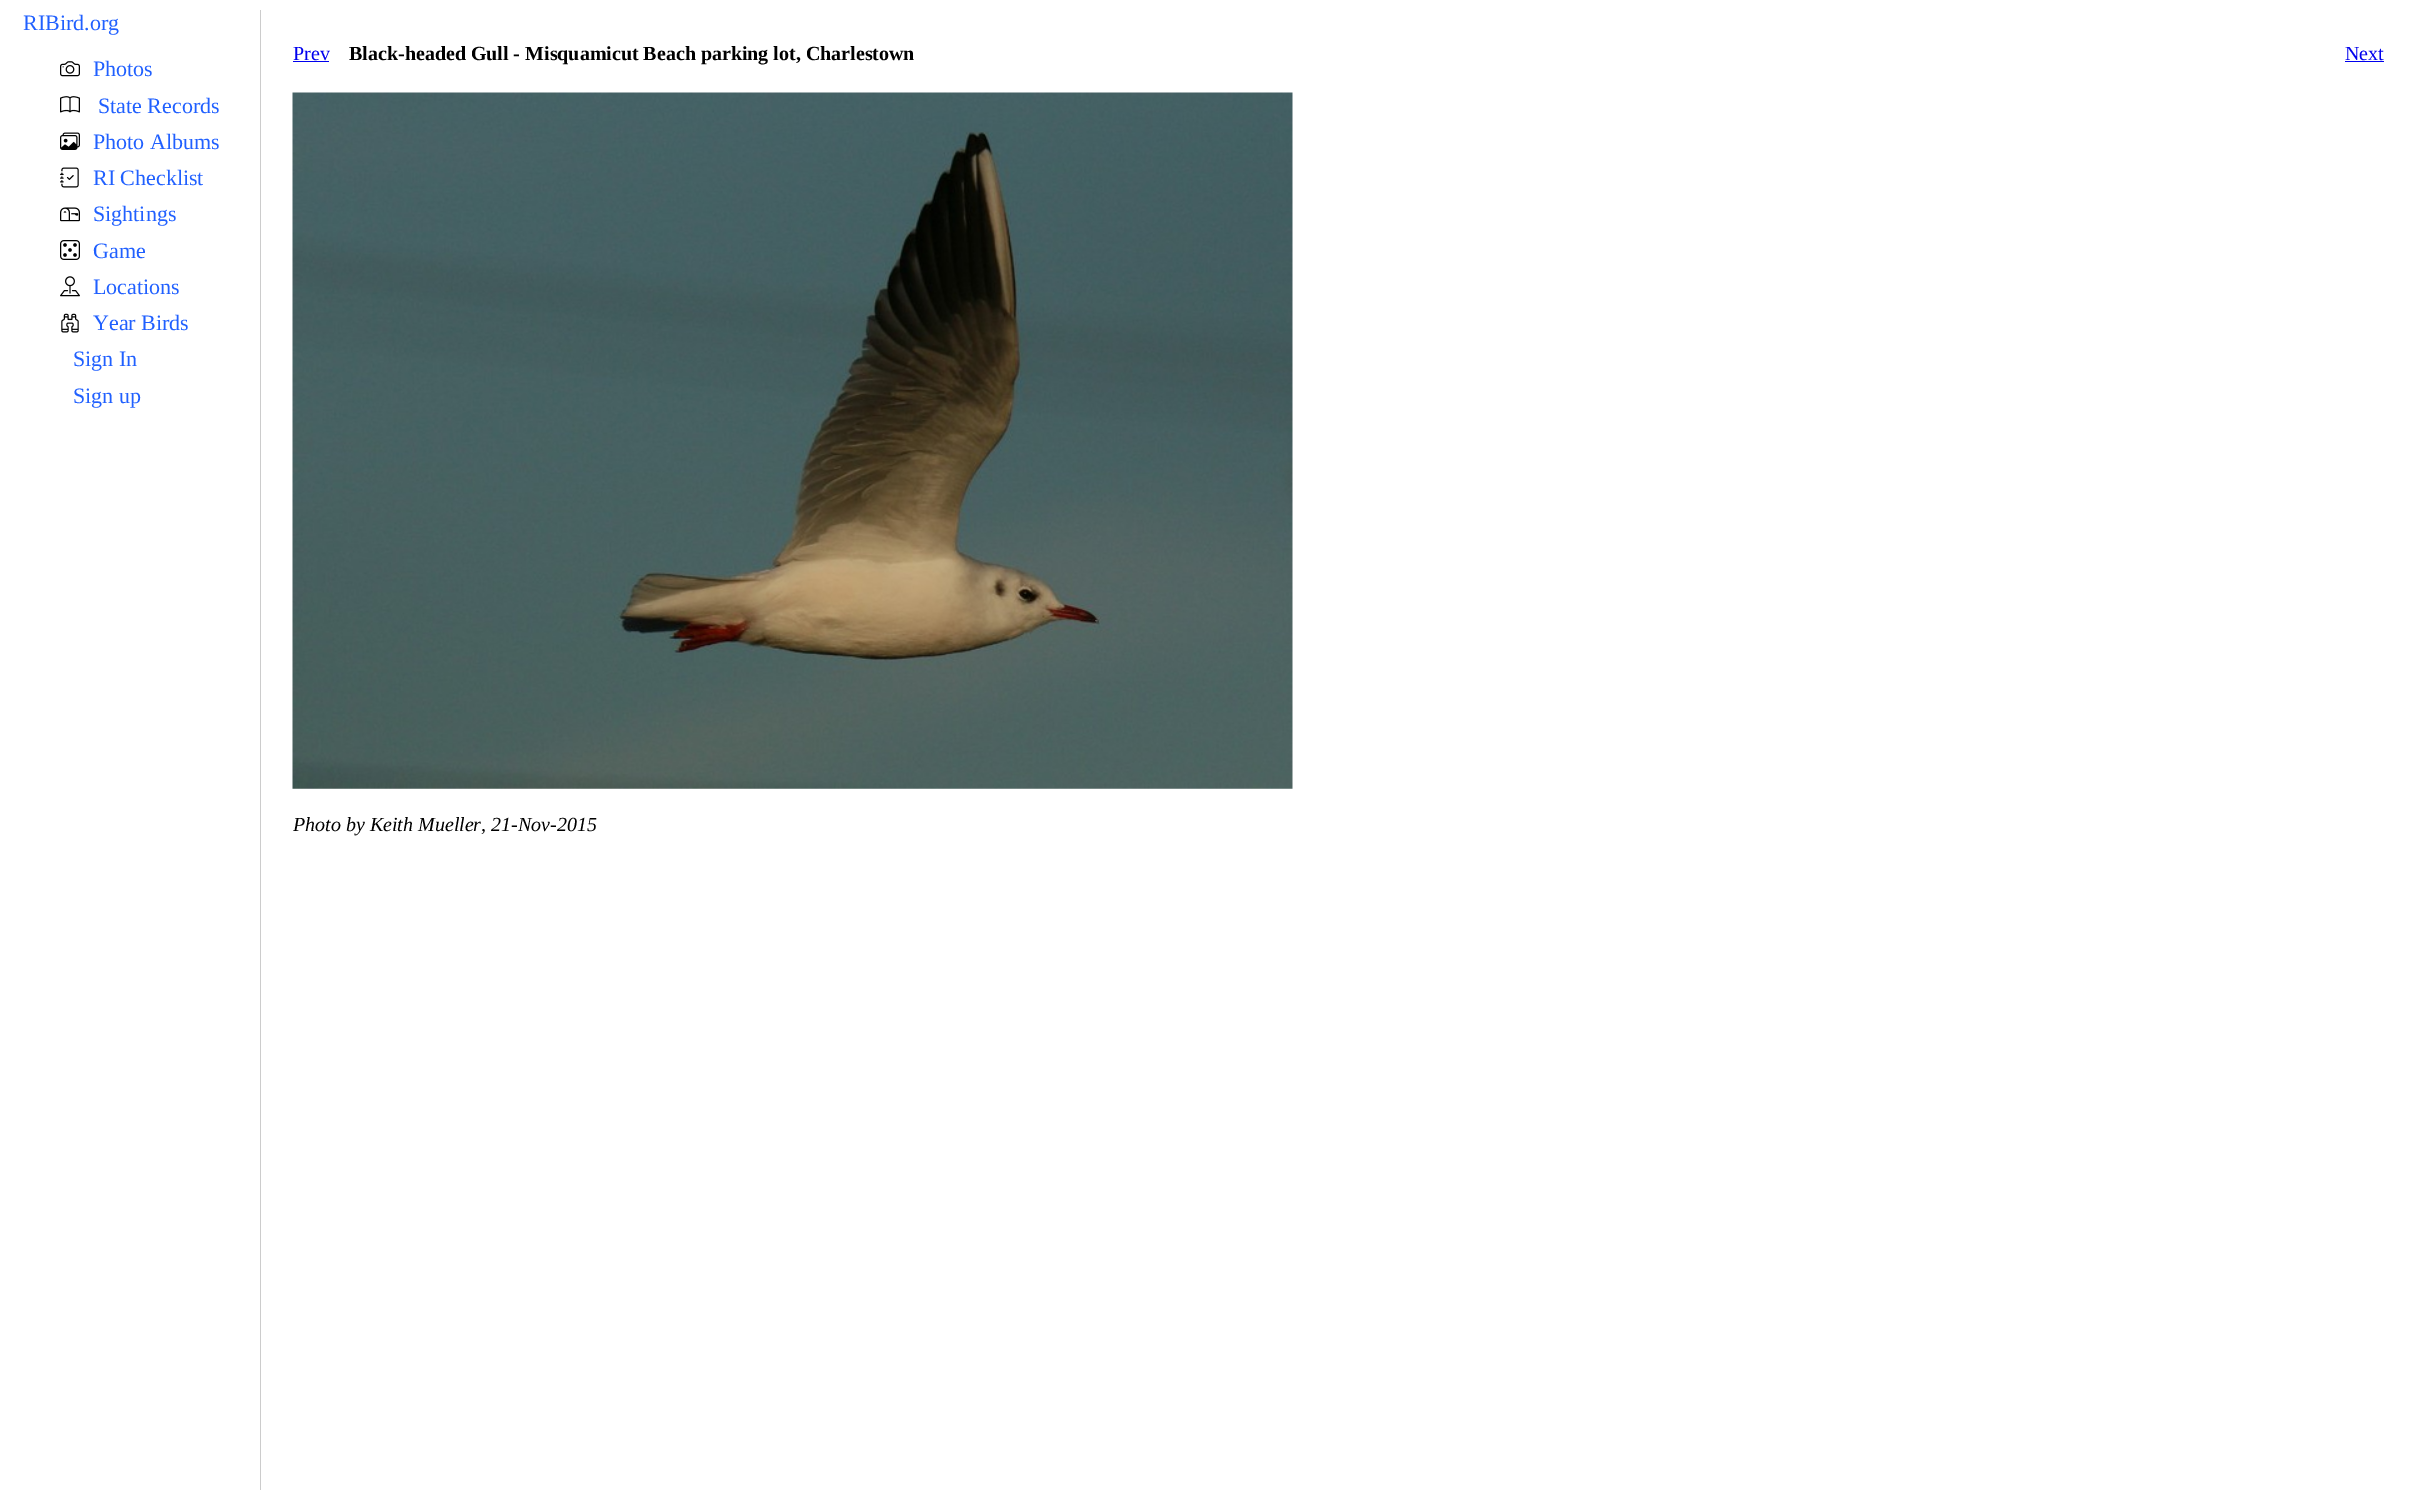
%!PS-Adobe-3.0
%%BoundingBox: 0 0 2435 1490
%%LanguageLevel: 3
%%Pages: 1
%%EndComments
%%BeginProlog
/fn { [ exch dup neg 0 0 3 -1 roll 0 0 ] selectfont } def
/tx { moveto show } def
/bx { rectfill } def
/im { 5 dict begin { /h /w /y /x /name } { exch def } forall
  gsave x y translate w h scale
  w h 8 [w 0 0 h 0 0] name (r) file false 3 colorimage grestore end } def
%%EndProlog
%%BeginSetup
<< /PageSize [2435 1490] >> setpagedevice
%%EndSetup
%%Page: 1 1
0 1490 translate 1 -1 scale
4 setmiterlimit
1 setgray
0 0 2435 1490 bx
0.8 setgray
260 10 1 1480 bx
/LiberationSerif-Regular 22 fn
0.125 0.376 1 setrgbcolor
(RIBird.org) 23 30 tx
(image0.raw) 60 61 20 16 im
(Photos) 93 76 tx
(image1.raw) 60 96 20 17 im
(State Records) 98 113 tx
(image2.raw) 60 132 20 18 im
(Photo Albums) 93 149 tx
(image3.raw) 60 167 19 21 im
(RI Checklist) 93 185 tx
(image4.raw) 60 207 20 15 im
(Sightings) 93 221 tx
(image5.raw) 60 240 20 20 im
(Game) 93 258 tx
(image6.raw) 60 276 20 21 im
(Locations) 93 294 tx
(image7.raw) 61 313 18 20 im
(Year Birds) 93 330 tx
(Sign In) 73 366 tx
(Sign up) 73 403 tx
/LiberationSerif-Regular 20 fn
0 0 0.933 setrgbcolor
(Prev) 293 60 tx
293 61 36 1 bx
/LiberationSerif-Bold 20 fn
0 setgray
(Black-headed Gull - Misquamicut Beach parking lot, Charlestown) 349 60 tx
/LiberationSerif-Regular 20 fn
0 0 0.933 setrgbcolor
(Next) 2345 60 tx
2345 61 39 1 bx
(image8.raw) 292 92 1001 697 im
/LiberationSerif-Italic 20 fn
0 setgray
(Photo by Keith Mueller, 21-Nov-2015) 293 831 tx
showpage
%%EOF
